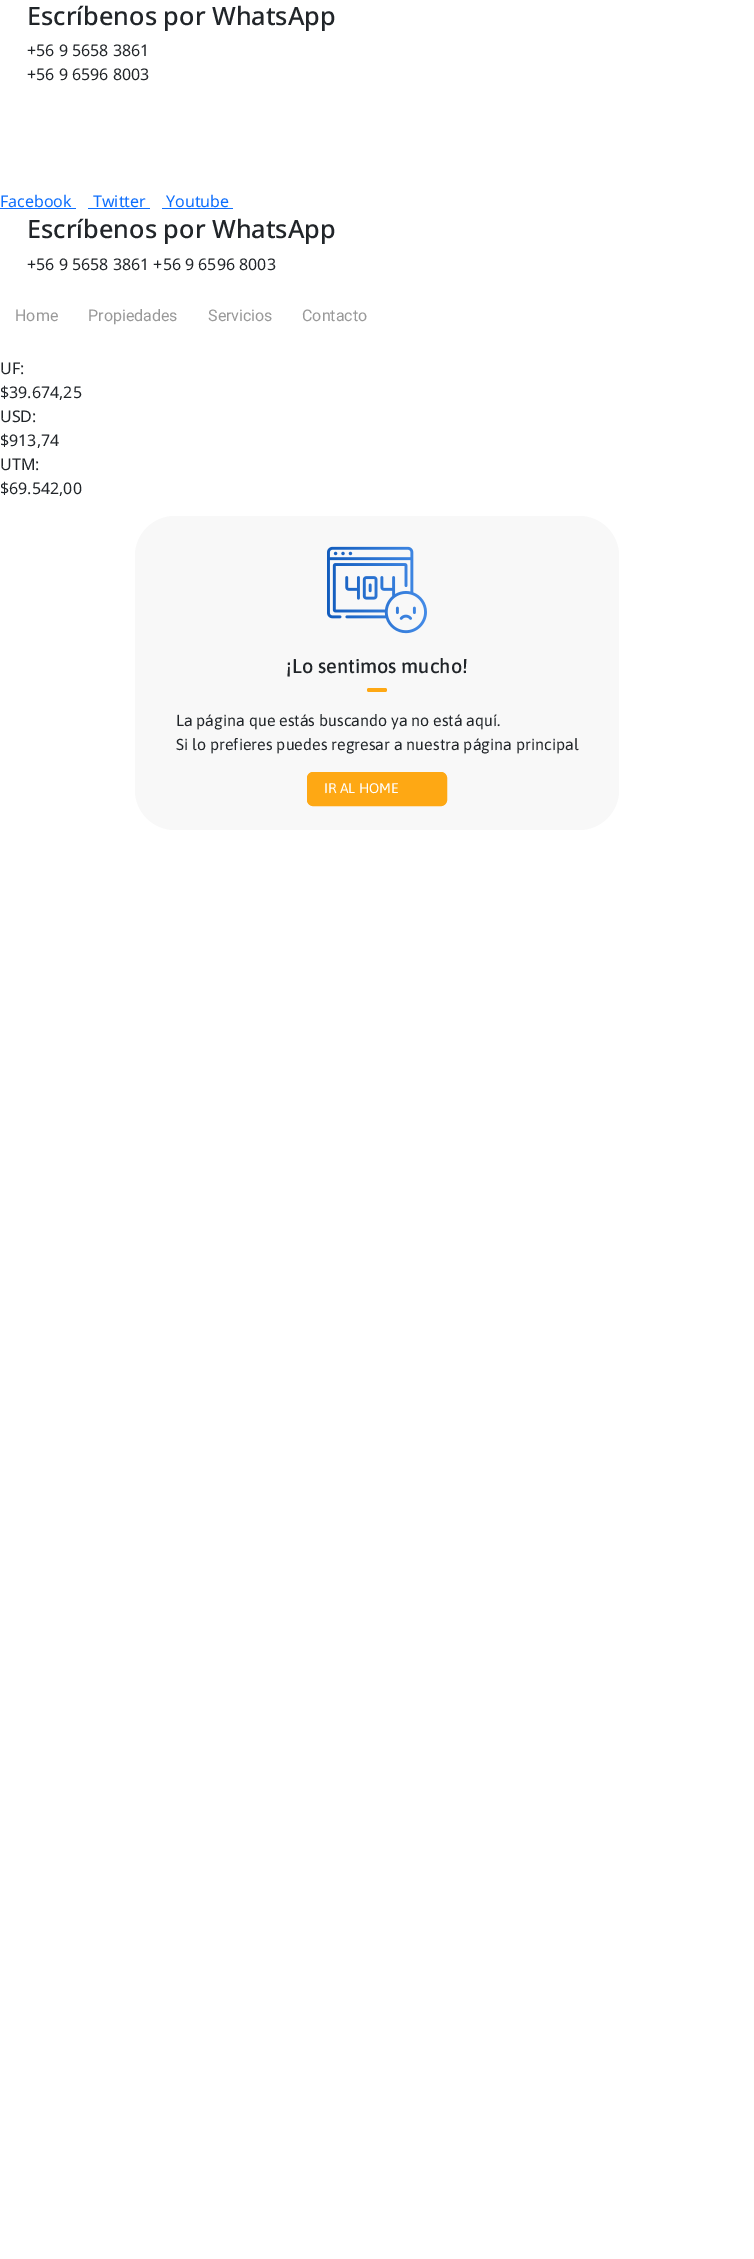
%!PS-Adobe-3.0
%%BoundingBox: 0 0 754 2259
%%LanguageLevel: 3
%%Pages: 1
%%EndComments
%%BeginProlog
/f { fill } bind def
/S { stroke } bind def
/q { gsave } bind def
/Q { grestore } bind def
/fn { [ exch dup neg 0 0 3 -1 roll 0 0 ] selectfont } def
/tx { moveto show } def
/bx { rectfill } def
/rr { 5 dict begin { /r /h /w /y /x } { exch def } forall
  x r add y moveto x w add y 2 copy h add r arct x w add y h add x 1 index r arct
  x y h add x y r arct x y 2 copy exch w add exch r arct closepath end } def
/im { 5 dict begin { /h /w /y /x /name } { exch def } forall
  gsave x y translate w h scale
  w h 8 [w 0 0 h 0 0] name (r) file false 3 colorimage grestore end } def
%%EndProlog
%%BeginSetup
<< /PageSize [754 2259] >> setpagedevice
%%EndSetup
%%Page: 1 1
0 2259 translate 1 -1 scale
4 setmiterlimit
1 setgray
0 0 754 2259 bx
/NotoSans-Medium 25.25 fn
0.129 0.145 0.161 setrgbcolor
(Escríbenos por WhatsApp) 27 25 tx
/NotoSans-Regular 16 fn
(+56 9 5658 3861) 27 56 tx
(+56 9 6596 8003) 27 80 tx
0.051 0.431 0.992 setrgbcolor
(Facebook) 0 207 tx
0 208 76 1 bx
88 208 62 1 bx
(Twitter) 93 207 tx
162 208 71 1 bx
(Youtube) 166 207 tx
/NotoSans-Medium 25.25 fn
0.129 0.145 0.161 setrgbcolor
(Escríbenos por WhatsApp) 27 238 tx
/NotoSans-Regular 16 fn
(+56 9 5658 3861 +56 9 6596 8003) 27 270 tx
/Roboto-Regular 16 fn
0.6 setgray
(Home) 15 321 tx
(Propiedades) 88 321 tx
(Servicios) 208 321 tx
(Contacto) 302 321 tx
/NotoSans-Regular 16 fn
0.129 0.145 0.161 setrgbcolor
(UF:) 0 374 tx
($39.674,25) 0 398 tx
(USD:) 0 422 tx
($913,74) 0 446 tx
(UTM:) 0 470 tx
($69.542,00) 0 494 tx
0.973 setgray
135 516 484 314 40 rr f
(image0.raw) 327 546 100 88 im
/Asap-Medium 20 fn
0.129 0.145 0.161 setrgbcolor
(¡Lo sentimos mucho!) 286 673 tx
0.996 0.659 0.078 setrgbcolor
367 688 20 4 2 rr f
/Asap-Regular 16 fn
0.129 0.145 0.161 setrgbcolor
(La página que estás buscando ya no está aquí.) 176 726 tx
(Si lo prefieres puedes regresar a nuestra página principal) 176 750 tx
0.996 0.659 0.078 setrgbcolor
307.5 772.5 139 33 5.5 rr q f Q
S
/Asap-Regular 14 fn
1 setgray
(IR AL HOME) 324 793 tx
showpage
%%EOF
